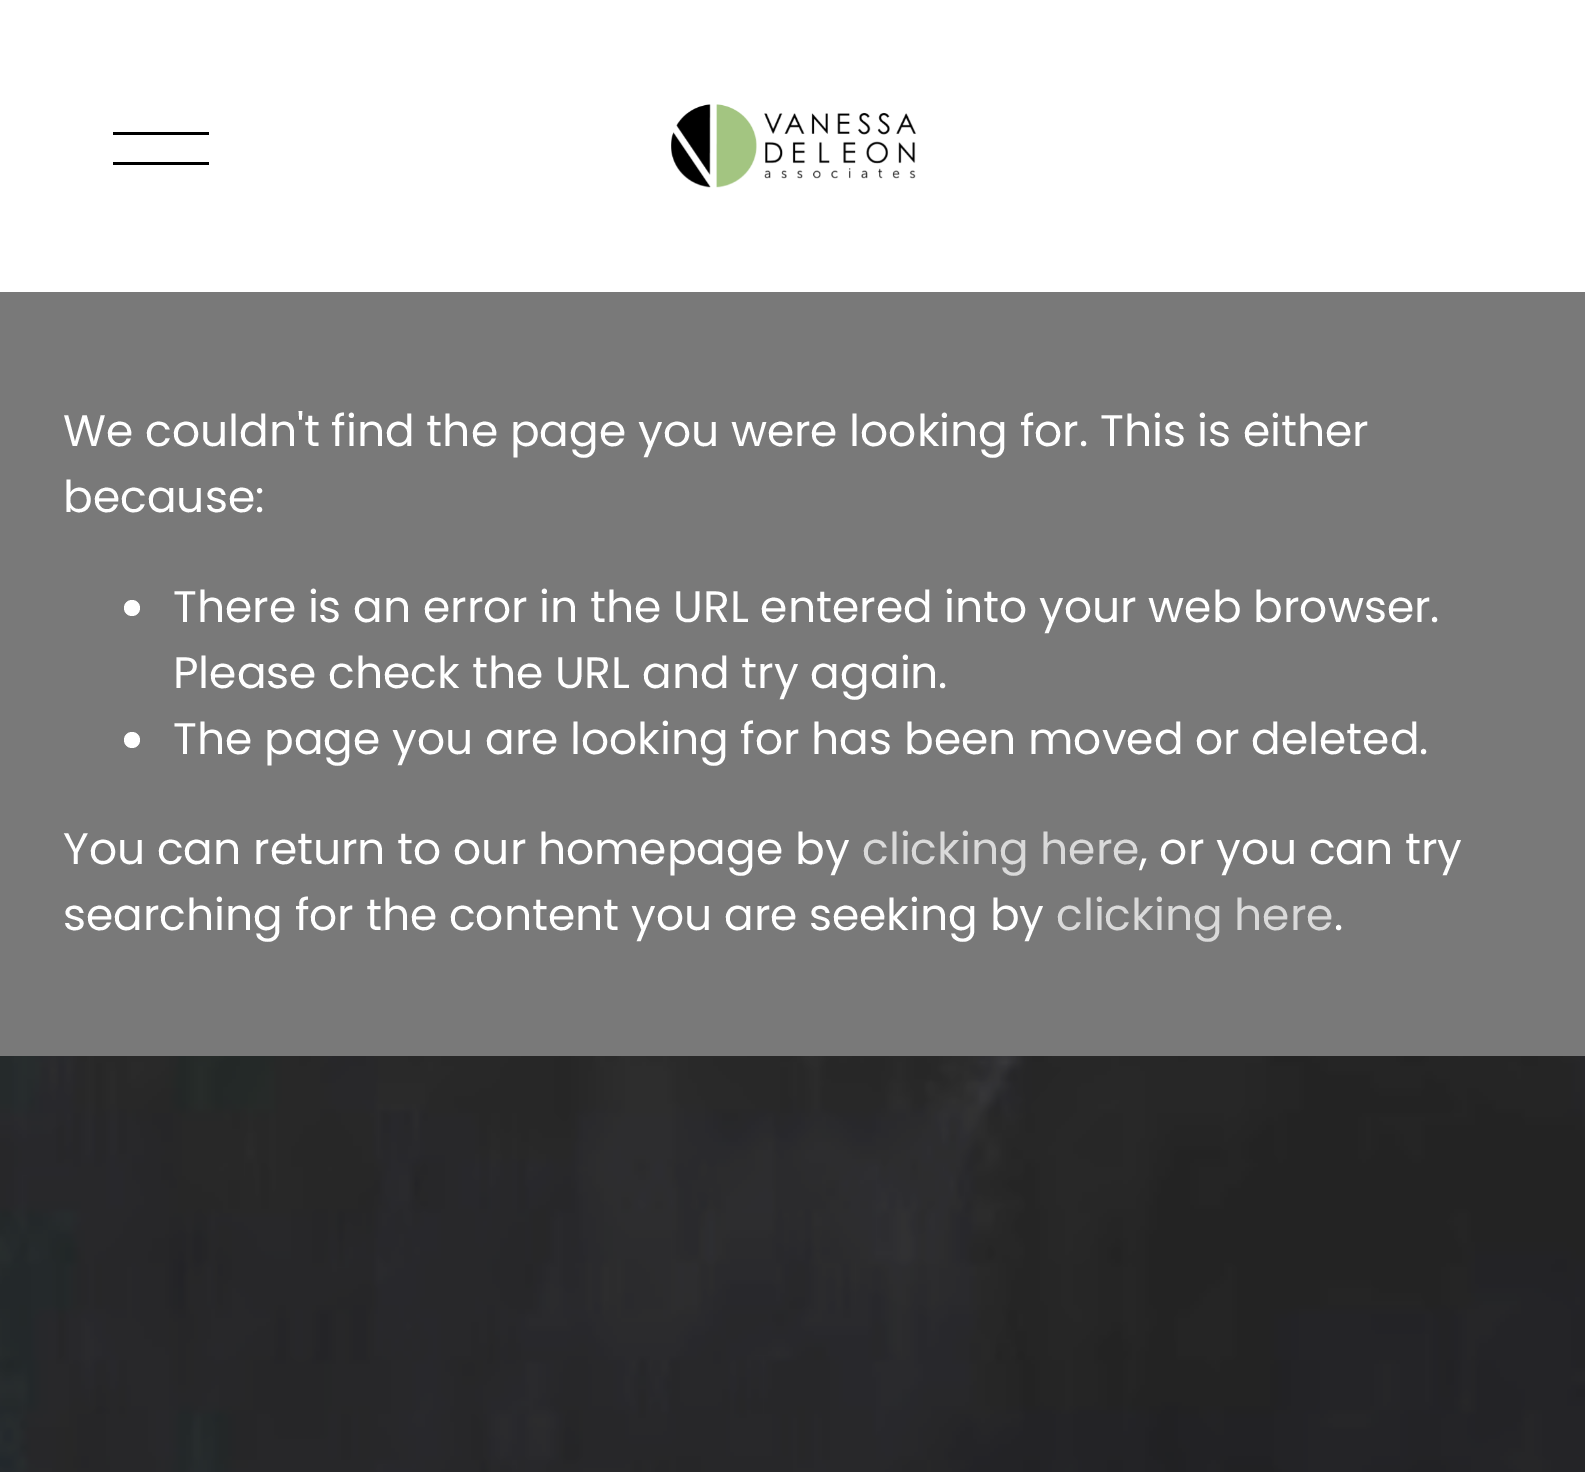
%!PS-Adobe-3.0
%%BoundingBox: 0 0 1585 1472
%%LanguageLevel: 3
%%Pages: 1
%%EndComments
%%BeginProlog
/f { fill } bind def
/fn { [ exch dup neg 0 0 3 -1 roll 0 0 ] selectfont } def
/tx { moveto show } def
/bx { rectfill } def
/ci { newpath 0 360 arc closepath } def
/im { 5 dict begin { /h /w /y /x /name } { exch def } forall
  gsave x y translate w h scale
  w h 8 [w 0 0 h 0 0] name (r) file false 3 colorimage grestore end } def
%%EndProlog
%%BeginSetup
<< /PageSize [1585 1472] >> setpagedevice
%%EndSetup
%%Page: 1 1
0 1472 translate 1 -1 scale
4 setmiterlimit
0.475 setgray
0 0 1585 1472 bx
1 setgray
0 0 1585 292 bx
0 setgray
113 132 96 3 bx
113 162 96 3 bx
(image0.raw) 671 104 246 84 im
/Poppins-Regular 44 fn
1 setgray
(We couldn't find the page you were looking for. This is either) 63 446 tx
(because:) 63 512 tx
132 608 8 ci f
(There is an error in the URL entered into your web browser.) 173 622 tx
(Please check the URL and try again.) 173 688 tx
132 740 8 ci f
(The page you are looking for has been moved or deleted.) 173 754 tx
(You can return to our homepage by) 63 864 tx
0.851 setgray
(clicking here) 862 864 tx
1 setgray
(, or you can try) 1139 864 tx
(searching for the content you are seeking by) 63 930 tx
0.851 setgray
(clicking here) 1056 930 tx
1 setgray
(.) 1334 930 tx
(image1.raw) 0 1056 1585 416 im
showpage
%%EOF
